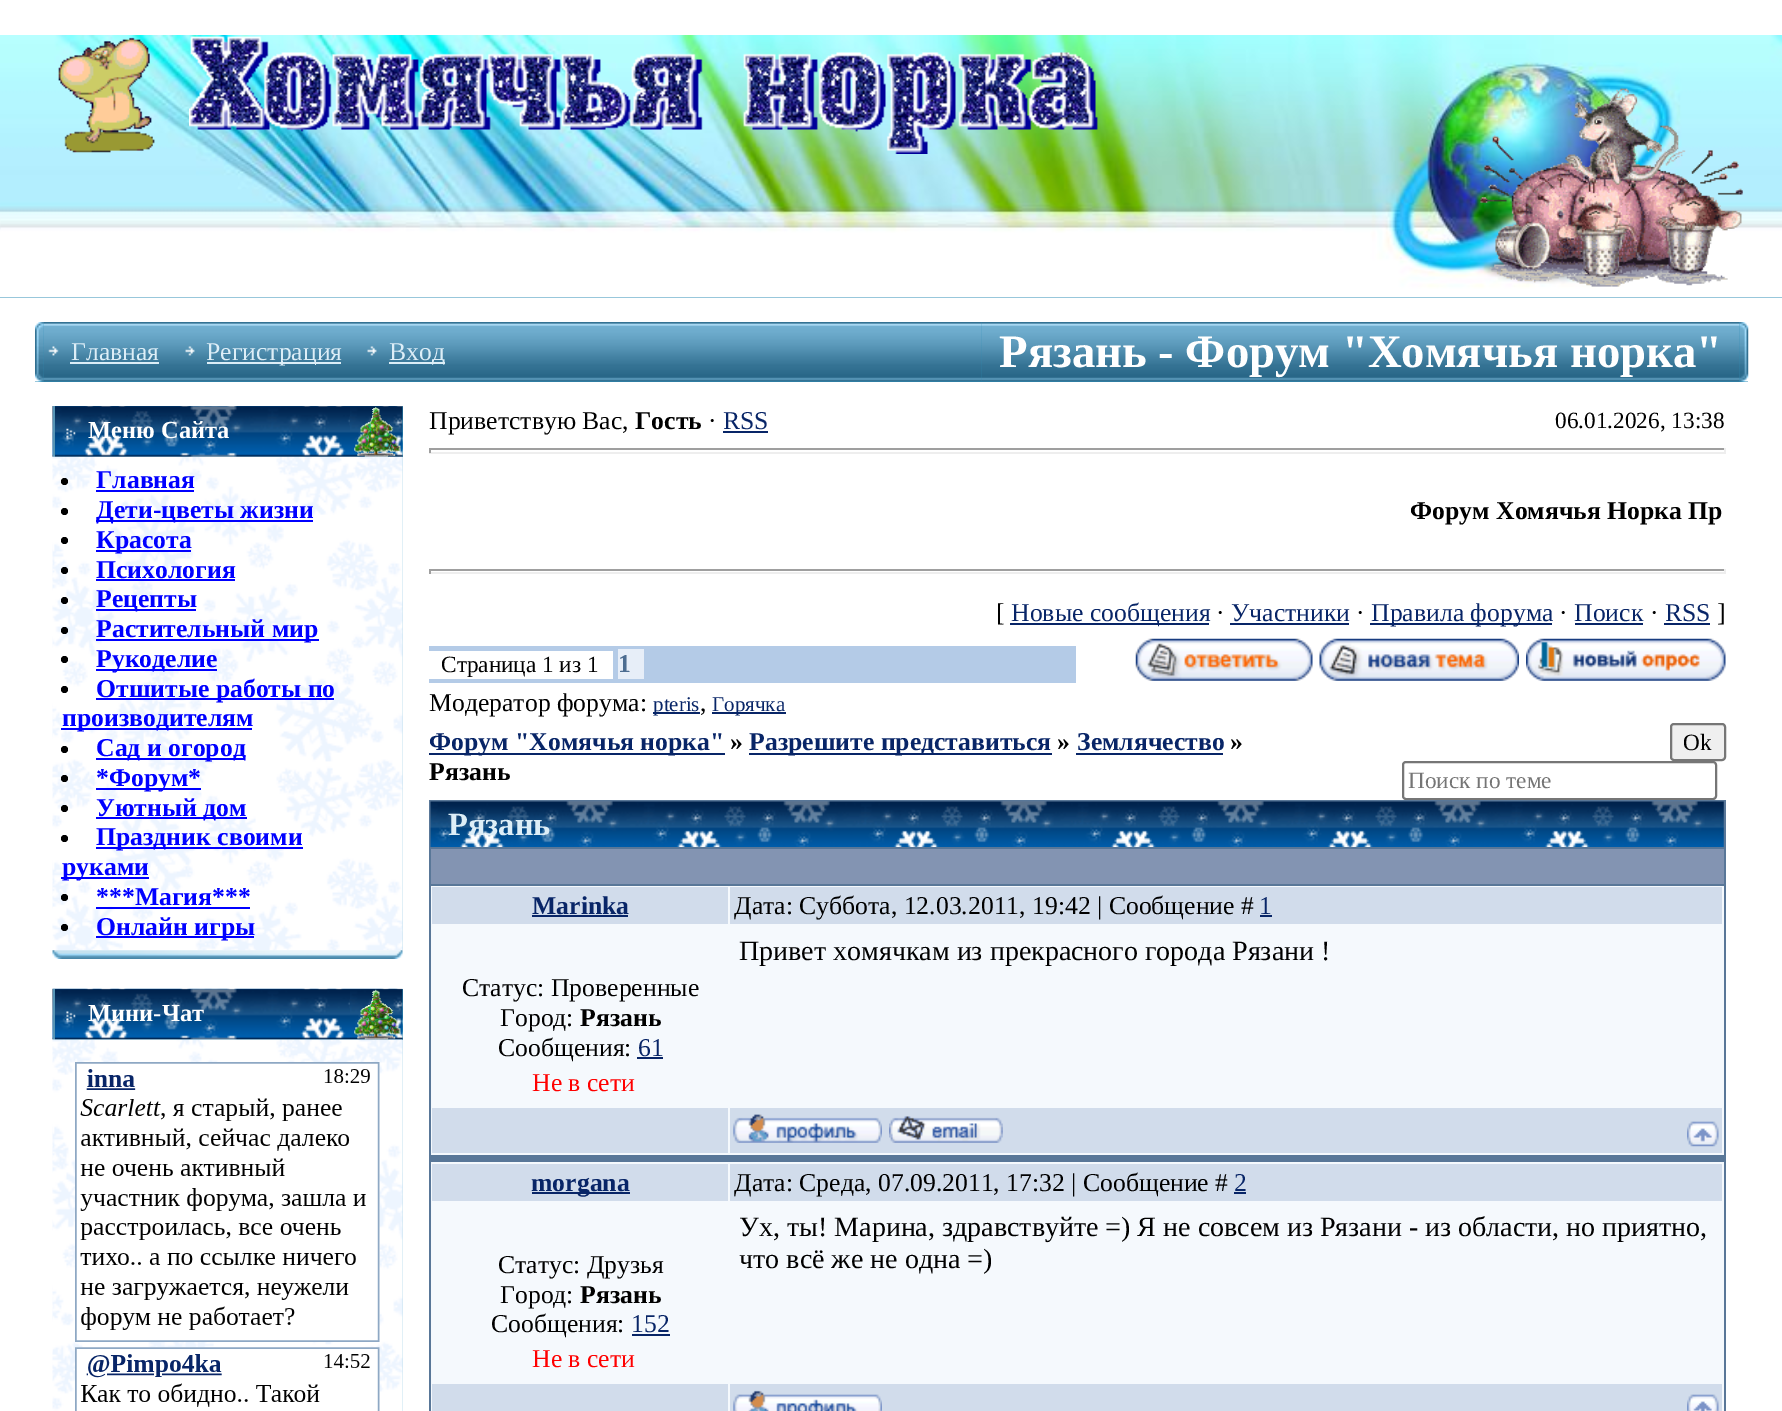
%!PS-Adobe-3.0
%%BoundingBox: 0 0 1782 1411
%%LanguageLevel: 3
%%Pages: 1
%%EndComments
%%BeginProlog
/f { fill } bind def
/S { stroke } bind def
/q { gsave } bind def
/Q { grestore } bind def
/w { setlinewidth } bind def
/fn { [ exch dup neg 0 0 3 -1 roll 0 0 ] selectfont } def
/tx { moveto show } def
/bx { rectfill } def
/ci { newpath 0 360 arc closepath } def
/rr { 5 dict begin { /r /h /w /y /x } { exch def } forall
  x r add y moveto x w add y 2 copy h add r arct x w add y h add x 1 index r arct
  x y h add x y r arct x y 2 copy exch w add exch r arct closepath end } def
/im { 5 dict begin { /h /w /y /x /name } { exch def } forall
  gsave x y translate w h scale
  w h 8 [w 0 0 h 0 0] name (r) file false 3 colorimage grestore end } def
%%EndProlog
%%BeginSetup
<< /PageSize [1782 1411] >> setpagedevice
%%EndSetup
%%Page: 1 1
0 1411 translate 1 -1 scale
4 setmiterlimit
1 setgray
0 0 1782 1411 bx
0.192 0.557 0.718 setrgbcolor
0 297 1782 1 bx
(image0.raw) 0 35 1782 263 im
(image1.raw) 58 37 97 116 im
(image2.raw) 189 36 909 118 im
(image3.raw) 1480 88 263 199 im
35 322 1705 60 bx
(image6.raw) 43 322 939 60 im
(image4.raw) 35 322 9 60 im
1740 381 8 1 bx
(image9.raw) 981 322 759 60 im
(image5.raw) 1739 322 10 60 im
(image7.raw) 48 346 11 10 im
/LiberationSerif-Regular 25.7 fn
0.867 0.933 0.969 setrgbcolor
(Главная) 71 360 tx
70 362 89 2 bx
(image8.raw) 185 346 10 10 im
207 362 134 2 bx
(Регистрация) 206 360 tx
(image8.raw) 367 346 10 10 im
389 362 56 2 bx
(Вход) 389 360 tx
/LiberationSerif-Bold 46.7 fn
1 setgray
(Рязань - Форум "Хомячья норка") 999 367 tx
(image10.raw) 52 406 298 51 im
0.337 0.58 0.71 setrgbcolor
53 406 2 51 bx
(image11.raw) 66 428 10 10 im
/LiberationSerif-Bold 24.5 fn
1 setgray
(Меню Сайта) 88 438 tx
0.192 0.557 0.718 setrgbcolor
350 406 53 51 bx
(image12.raw) 350 406 53 51 im
0.765 0.882 0.937 setrgbcolor
402 457 1 493 bx
(image14.raw) 52 456 351 495 im
(image13.raw) 354 407 47 50 im
0 setgray
64.5 481.5 3.5 ci f
/LiberationSerif-Bold 25.7 fn
0 0 1 setrgbcolor
(Главная) 96 488 tx
96 490 98 2 bx
0 setgray
64.5 511.5 3.5 ci f
0 0 1 setrgbcolor
96 520 217 2 bx
(Дети-цветы жизни) 96 518 tx
0 setgray
64.5 540.5 3.5 ci f
0 0 1 setrgbcolor
96 550 95 2 bx
(Красота) 96 548 tx
0 setgray
64.5 570.5 3.5 ci f
0 0 1 setrgbcolor
(Психология) 96 578 tx
96 579 139 2 bx
0 setgray
64.5 600.5 3.5 ci f
0 0 1 setrgbcolor
96 609 100 2 bx
(Рецепты) 96 607 tx
0 setgray
64.5 630.5 3.5 ci f
0 0 1 setrgbcolor
96 639 223 2 bx
(Растительный мир) 96 637 tx
0 setgray
64.5 659.5 3.5 ci f
0 0 1 setrgbcolor
96 669 121 2 bx
(Рукоделие) 96 667 tx
0 setgray
64.5 689.5 3.5 ci f
0 0 1 setrgbcolor
96 698 238 2 bx
(Отшитые работы по) 96 697 tx
61 728 191 2 bx
(производителям) 62 726 tx
0 setgray
64.5 749.5 3.5 ci f
0 0 1 setrgbcolor
96 758 149 2 bx
(Сад и огород) 96 756 tx
0 setgray
64.5 778.5 3.5 ci f
0 0 1 setrgbcolor
96 788 105 2 bx
(*Форум*) 96 786 tx
0 setgray
64.5 808.5 3.5 ci f
0 0 1 setrgbcolor
96 817 151 2 bx
(Уютный дом) 96 816 tx
0 setgray
64.5 838.5 3.5 ci f
0 0 1 setrgbcolor
96 847 207 2 bx
(Праздник своими) 96 845 tx
61 877 88 2 bx
(руками) 62 875 tx
0 setgray
64.5 897.5 3.5 ci f
0 0 1 setrgbcolor
(***Магия***) 96 905 tx
96 907 154 2 bx
0 setgray
64.5 927.5 3.5 ci f
0 0 1 setrgbcolor
96 936 158 2 bx
(Онлайн игры) 96 935 tx
(image15.raw) 52 950 351 9 im
(image16.raw) 52 988 298 52 im
0.337 0.58 0.71 setrgbcolor
53 989 2 51 bx
(image17.raw) 66 1011 10 10 im
/LiberationSerif-Bold 24.5 fn
1 setgray
(Мини-Чат) 88 1021 tx
0.192 0.557 0.718 setrgbcolor
350 989 53 51 bx
(image18.raw) 350 988 53 52 im
0.765 0.882 0.937 setrgbcolor
402 1040 1 371 bx
(image20.raw) 52 1039 351 372 im
(image19.raw) 354 989 47 51 im
(image21.raw) 75 1062 305 349 im
/LiberationSerif-Regular 25.7 fn
0 setgray
(Приветствую Вас,) 429 429 tx
/LiberationSerif-Bold 25.7 fn
(Гость) 635 429 tx
/LiberationSerif-Regular 25.7 fn
(·) 708 429 tx
0.031 0.145 0.404 setrgbcolor
(RSS) 723 429 tx
723 431 45 2 bx
/LiberationSerif-Regular 23.25 fn
0 setgray
(06.01.2026, 13:38) 1555 428 tx
0.624 setgray
429 448 1297 2 bx
0.933 setgray
1724 448 2 5 bx
429 452 1297 2 bx
0.624 setgray
429 448 2 5 bx
/LiberationSerif-Bold 25.7 fn
0 setgray
(Форум Хомячья Норка Пр) 1410 519 tx
0.624 setgray
429 569 1297 2 bx
0.933 setgray
1724 569 2 5 bx
429 572 1297 2 bx
0.624 setgray
429 569 2 5 bx
/LiberationSerif-Regular 25.7 fn
0 setgray
([) 996 621 tx
0.031 0.145 0.404 setrgbcolor
1010 623 199 2 bx
(Новые сообщения) 1011 621 tx
0 setgray
(·) 1216 621 tx
0.031 0.145 0.404 setrgbcolor
(Участники) 1231 621 tx
1230 623 119 2 bx
0 setgray
(·) 1356 621 tx
0.031 0.145 0.404 setrgbcolor
1370 623 182 2 bx
(Правила форума) 1371 621 tx
0 setgray
(·) 1559 621 tx
0.031 0.145 0.404 setrgbcolor
(Поиск) 1574 621 tx
1575 623 68 2 bx
0 setgray
(·) 1650 621 tx
0.031 0.145 0.404 setrgbcolor
(RSS) 1665 621 tx
1664 623 46 2 bx
0 setgray
(]) 1717 621 tx
0.706 0.796 0.906 setrgbcolor
429 646 647 37 bx
1 setgray
429 651 184 28 bx
/LiberationSerif-Regular 23.25 fn
0 setgray
(Страница 1 из 1) 441 672 tx
0.906 0.933 0.973 setrgbcolor
618 649 26 30 bx
/LiberationSerif-Bold 25.7 fn
0.302 0.427 0.569 setrgbcolor
(1) 618 672 tx
(image22.raw) 1135 638 178 43 im
(image23.raw) 1319 638 200 43 im
(image24.raw) 1526 638 200 43 im
/LiberationSerif-Regular 25.7 fn
0 setgray
(Модератор форума:) 429 711 tx
0.031 0.145 0.404 setrgbcolor
653 712 47 2 bx
/LiberationSerif-Regular 21 fn
(pteris) 653 711 tx
/LiberationSerif-Regular 25.7 fn
0 setgray
(,) 700 711 tx
0.031 0.145 0.404 setrgbcolor
712 712 74 2 bx
/LiberationSerif-Regular 21 fn
(Горячка) 712 711 tx
429 753 296 2 bx
/LiberationSerif-Bold 25.7 fn
(Форум "Хомячья норка") 429 750 tx
0 setgray
(») 730 750 tx
0.031 0.145 0.404 setrgbcolor
749 753 303 2 bx
(Разрешите представиться) 749 750 tx
0 setgray
(») 1057 750 tx
0.031 0.145 0.404 setrgbcolor
(Землячество) 1077 750 tx
1076 753 147 2 bx
0 setgray
(») 1230 750 tx
(Рязань) 429 780 tx
0.937 setgray
1671 724 54 36 3 rr q f Q
0.463 setgray
2 w
S
/LiberationSerif-Regular 23.25 fn
0 setgray
(Ok) 1683 750 tx
0.463 setgray
1403 762 313 37 3 rr S
0.459 setgray
(Поиск по теме) 1408 788 tx
0.349 0.467 0.596 setrgbcolor
429 800 1297 611 bx
(image25.raw) 430 801 1294 46 im
/LiberationSerif-Bold 32.5 fn
0.867 0.933 0.969 setrgbcolor
(Рязань) 448 835 tx
0.514 0.58 0.698 setrgbcolor
431 849 1293 35 bx
0.961 0.976 0.992 setrgbcolor
431 886 1293 269 bx
0.82 0.863 0.922 setrgbcolor
432 887 296 37 bx
/LiberationSerif-Bold 25.7 fn
0.031 0.145 0.404 setrgbcolor
(Marinka) 532 914 tx
532 915 96 2 bx
0.82 0.863 0.922 setrgbcolor
730 887 992 37 bx
/LiberationSerif-Regular 25.7 fn
0 setgray
(Дата: Суббота, 12.03.2011, 19:42 | Сообщение #) 734 914 tx
0.031 0.145 0.404 setrgbcolor
(1) 1259 914 tx
1260 915 12 2 bx
/LiberationSerif-Regular 28 fn
0 setgray
(Привет хомячкам из прекрасного города Рязани !) 739 960 tx
/LiberationSerif-Regular 25.7 fn
(Статус: Проверенные) 462 996 tx
(Город:) 500 1026 tx
/LiberationSerif-Bold 25.7 fn
(Рязань) 580 1026 tx
/LiberationSerif-Regular 25.7 fn
(Сообщения:) 498 1056 tx
0.031 0.145 0.404 setrgbcolor
(61) 638 1056 tx
637 1057 26 2 bx
1 0 0 setrgbcolor
(Не в сети) 532 1091 tx
0.82 0.863 0.922 setrgbcolor
432 1108 296 45 bx
730 1108 992 45 bx
(image26.raw) 733 1114 149 29 im
(image27.raw) 889 1116 114 27 im
(image28.raw) 1687 1121 32 26 im
0.961 0.976 0.992 setrgbcolor
431 1162 1293 249 bx
0.82 0.863 0.922 setrgbcolor
432 1164 296 37 bx
0.031 0.145 0.404 setrgbcolor
532 1192 98 2 bx
/LiberationSerif-Bold 25.7 fn
(morgana) 531 1191 tx
0.82 0.863 0.922 setrgbcolor
730 1164 992 37 bx
/LiberationSerif-Regular 25.7 fn
0 setgray
(Дата: Среда, 07.09.2011, 17:32 | Сообщение #) 734 1191 tx
0.031 0.145 0.404 setrgbcolor
(2) 1234 1191 tx
1234 1192 12 2 bx
/LiberationSerif-Regular 28 fn
0 setgray
(Ух, ты! Марина, здравствуйте =\) Я не совсем из Рязани - из области, но приятно,) 739 1236 tx
(что всё же не одна =\)) 739 1268 tx
/LiberationSerif-Regular 25.7 fn
(Статус: Друзья) 498 1273 tx
(Город:) 500 1303 tx
/LiberationSerif-Bold 25.7 fn
(Рязань) 580 1303 tx
/LiberationSerif-Regular 25.7 fn
(Сообщения:) 491 1332 tx
0.031 0.145 0.404 setrgbcolor
(152) 631 1332 tx
632 1334 38 2 bx
1 0 0 setrgbcolor
(Не в сети) 532 1367 tx
0.82 0.863 0.922 setrgbcolor
432 1384 296 27 bx
730 1384 992 27 bx
(image29.raw) 733 1390 149 21 im
(image30.raw) 1687 1394 32 17 im
showpage
%%EOF
